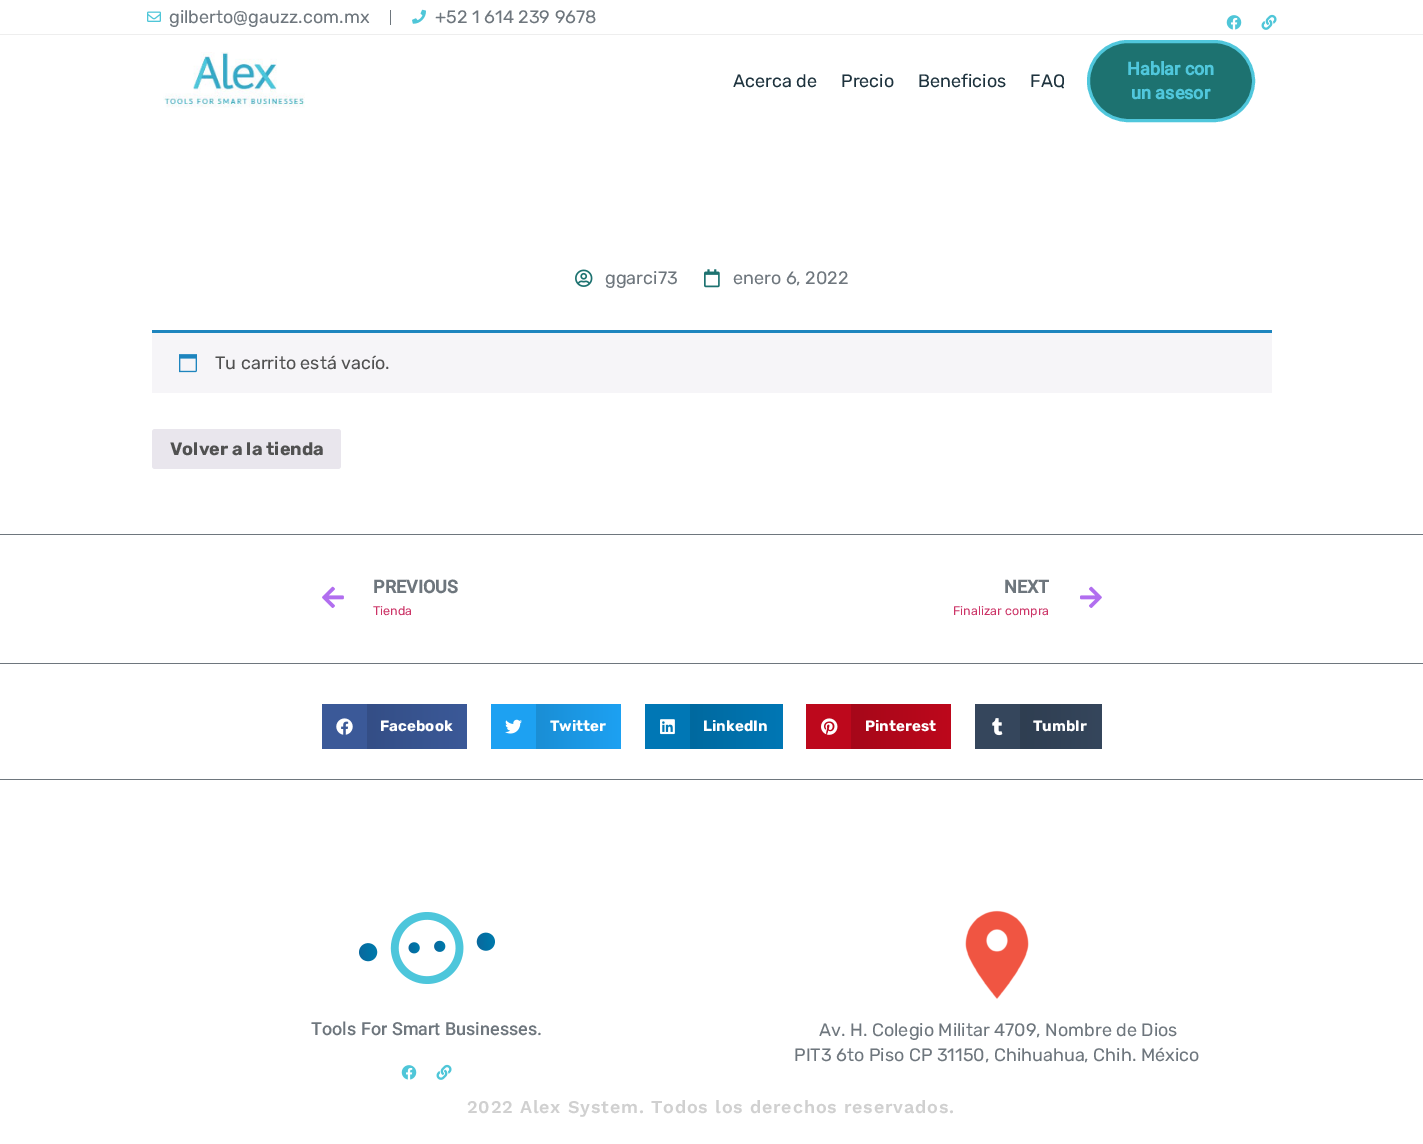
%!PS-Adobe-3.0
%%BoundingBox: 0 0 1423 1144
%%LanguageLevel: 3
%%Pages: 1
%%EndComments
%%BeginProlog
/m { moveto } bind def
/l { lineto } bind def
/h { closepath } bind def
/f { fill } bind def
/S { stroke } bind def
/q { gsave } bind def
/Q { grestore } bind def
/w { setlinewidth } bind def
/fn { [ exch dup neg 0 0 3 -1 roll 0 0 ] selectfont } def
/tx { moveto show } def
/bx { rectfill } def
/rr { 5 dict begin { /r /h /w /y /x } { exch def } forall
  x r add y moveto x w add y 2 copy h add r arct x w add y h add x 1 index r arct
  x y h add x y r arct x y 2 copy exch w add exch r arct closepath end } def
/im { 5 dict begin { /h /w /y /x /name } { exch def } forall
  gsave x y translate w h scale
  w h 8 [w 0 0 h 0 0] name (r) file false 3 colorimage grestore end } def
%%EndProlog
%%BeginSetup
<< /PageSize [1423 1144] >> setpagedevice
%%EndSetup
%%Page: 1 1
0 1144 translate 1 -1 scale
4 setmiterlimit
1 setgray
0 0 1423 1144 bx
0.933 setgray
0 34 1423 1 bx
(image0.raw) 147 11 14 11 im
/Rubik-Regular 18 fn
0.431 0.463 0.49 setrgbcolor
(gilberto@gauzz.com.mx) 169 23 tx
390 10 1 15 bx
(image1.raw) 412 9 14 15 im
(+52 1 614 239 9678) 435 23 tx
(image2.raw) 1226 15 16 15 im
(image3.raw) 1261 14 16 16 im
(image4.raw) 163 52 142 56 im
0.114 0.196 0.239 setrgbcolor
(Acerca de) 733 87 tx
(Precio) 841 87 tx
(Beneficios) 918 87 tx
(FAQ) 1030 87 tx
0.114 0.447 0.439 setrgbcolor
1088.5 41.5 165 79 39.5 rr q f Q
0.314 0.78 0.863 setrgbcolor
3 w
S
/Roboto-Bold 18 fn
(Hablar con) 1127 75 tx
(un asesor) 1131 99 tx
(image5.raw) 575 269 18 18 im
/Rubik-Regular 18 fn
0.431 0.463 0.49 setrgbcolor
(ggarci73) 605 284 tx
(image6.raw) 704 269 16 19 im
(enero 6, 2022) 733 284 tx
0.965 0.961 0.973 setrgbcolor
152 333 1120 60 bx
0.118 0.522 0.745 setrgbcolor
152 330 1120 3 bx
(image7.raw) 179 354 18 19 im
0.318 setgray
(Tu carrito está vacío.) 215 369 tx
0.914 0.902 0.929 setrgbcolor
152 429 189 40 3 rr f
/Rubik-Bold 18 fn
0.318 setgray
(Volver a la tienda) 170 455 tx
0.431 0.463 0.49 setrgbcolor
0 534 1423 1 bx
(image8.raw) 322 586 22 22 im
/Roboto-Bold 18 fn
(PREVIOUS) 373 593 tx
/Rubik-Regular 12.5 fn
0.8 0.2 0.4 setrgbcolor
(Tienda) 373 615 tx
/Roboto-Bold 18 fn
0.431 0.463 0.49 setrgbcolor
(NEXT) 1004 593 tx
/Rubik-Regular 12.5 fn
0.8 0.2 0.4 setrgbcolor
(Finalizar compra) 953 615 tx
(image9.raw) 1080 586 22 22 im
0.431 0.463 0.49 setrgbcolor
0 663 1423 1 bx
0 779 1423 1 bx
0.231 0.349 0.596 setrgbcolor
322 704 45 45 bx
(image10.raw) 336 718 17 17 im
q 367 704 m 467 704 l 467 749 l 367 749 l h clip newpath
<< /ShadingType 2 /ColorSpace /DeviceRGB /Coords [367 727 467 727] /Extend [true true] /Function << /FunctionType 2 /Domain [0 1] /C0 [0.204 0.306 0.525] /C1 [0.231 0.349 0.596] /N 1 >> >> shfill Q
/Rubik-Bold 15 fn
1 setgray
(Facebook) 380 731 tx
0.114 0.631 0.949 setrgbcolor
491 704 45 45 bx
(image11.raw) 505 719 17 15 im
q 536 704 m 621 704 l 621 749 l 536 749 l h clip newpath
<< /ShadingType 2 /ColorSpace /DeviceRGB /Coords [536 727 621 727] /Extend [true true] /Function << /FunctionType 2 /Domain [0 1] /C0 [0.102 0.557 0.835] /C1 [0.114 0.631 0.949] /N 1 >> >> shfill Q
1 setgray
(Twitter) 550 731 tx
0 0.467 0.71 setrgbcolor
645 704 45 45 bx
(image12.raw) 660 719 15 16 im
q 690 704 m 783 704 l 783 749 l 690 749 l h clip newpath
<< /ShadingType 2 /ColorSpace /DeviceRGB /Coords [690 727 783 727] /Extend [true true] /Function << /FunctionType 2 /Domain [0 1] /C0 [0 0.412 0.624] /C1 [0 0.467 0.71] /N 1 >> >> shfill Q
1 setgray
(LinkedIn) 703 731 tx
0.741 0.031 0.11 setrgbcolor
806 704 45 45 bx
(image13.raw) 821 718 17 17 im
q 851 704 m 951 704 l 951 749 l 851 749 l h clip newpath
<< /ShadingType 2 /ColorSpace /DeviceRGB /Coords [851 727 951 727] /Extend [true true] /Function << /FunctionType 2 /Domain [0 1] /C0 [0.651 0.027 0.098] /C1 [0.741 0.031 0.11] /N 1 >> >> shfill Q
1 setgray
(Pinterest) 865 731 tx
0.208 0.275 0.361 setrgbcolor
975 704 45 45 bx
(image14.raw) 992 718 11 18 im
q 1020 704 m 1102 704 l 1102 749 l 1020 749 l h clip newpath
<< /ShadingType 2 /ColorSpace /DeviceRGB /Coords [1020 727 1102 727] /Extend [true true] /Function << /FunctionType 2 /Domain [0 1] /C0 [0.184 0.243 0.318] /C1 [0.208 0.275 0.361] /N 1 >> >> shfill Q
1 setgray
(Tumblr) 1033 731 tx
(image15.raw) 359 912 136 72 im
/Roboto-Medium 18 fn
0.431 0.463 0.49 setrgbcolor
(Tools For Smart Businesses.) 311 1035 tx
(image2.raw) 401 1065 16 15 im
(image3.raw) 436 1064 16 16 im
(image16.raw) 965 910 64 89 im
/Rubik-Regular 18 fn
(Av. H. Colegio Militar 4709, Nombre de Dios) 819 1036 tx
(PIT3 6to Piso CP 31150, Chihuahua, Chih. México) 794 1061 tx
/WorkSans-SemiBold 18 fn
0.816 setgray
467 1113 m 0.8 0 (2022 Alex System. Todos los derechos reservados.) ashow
showpage
%%EOF
